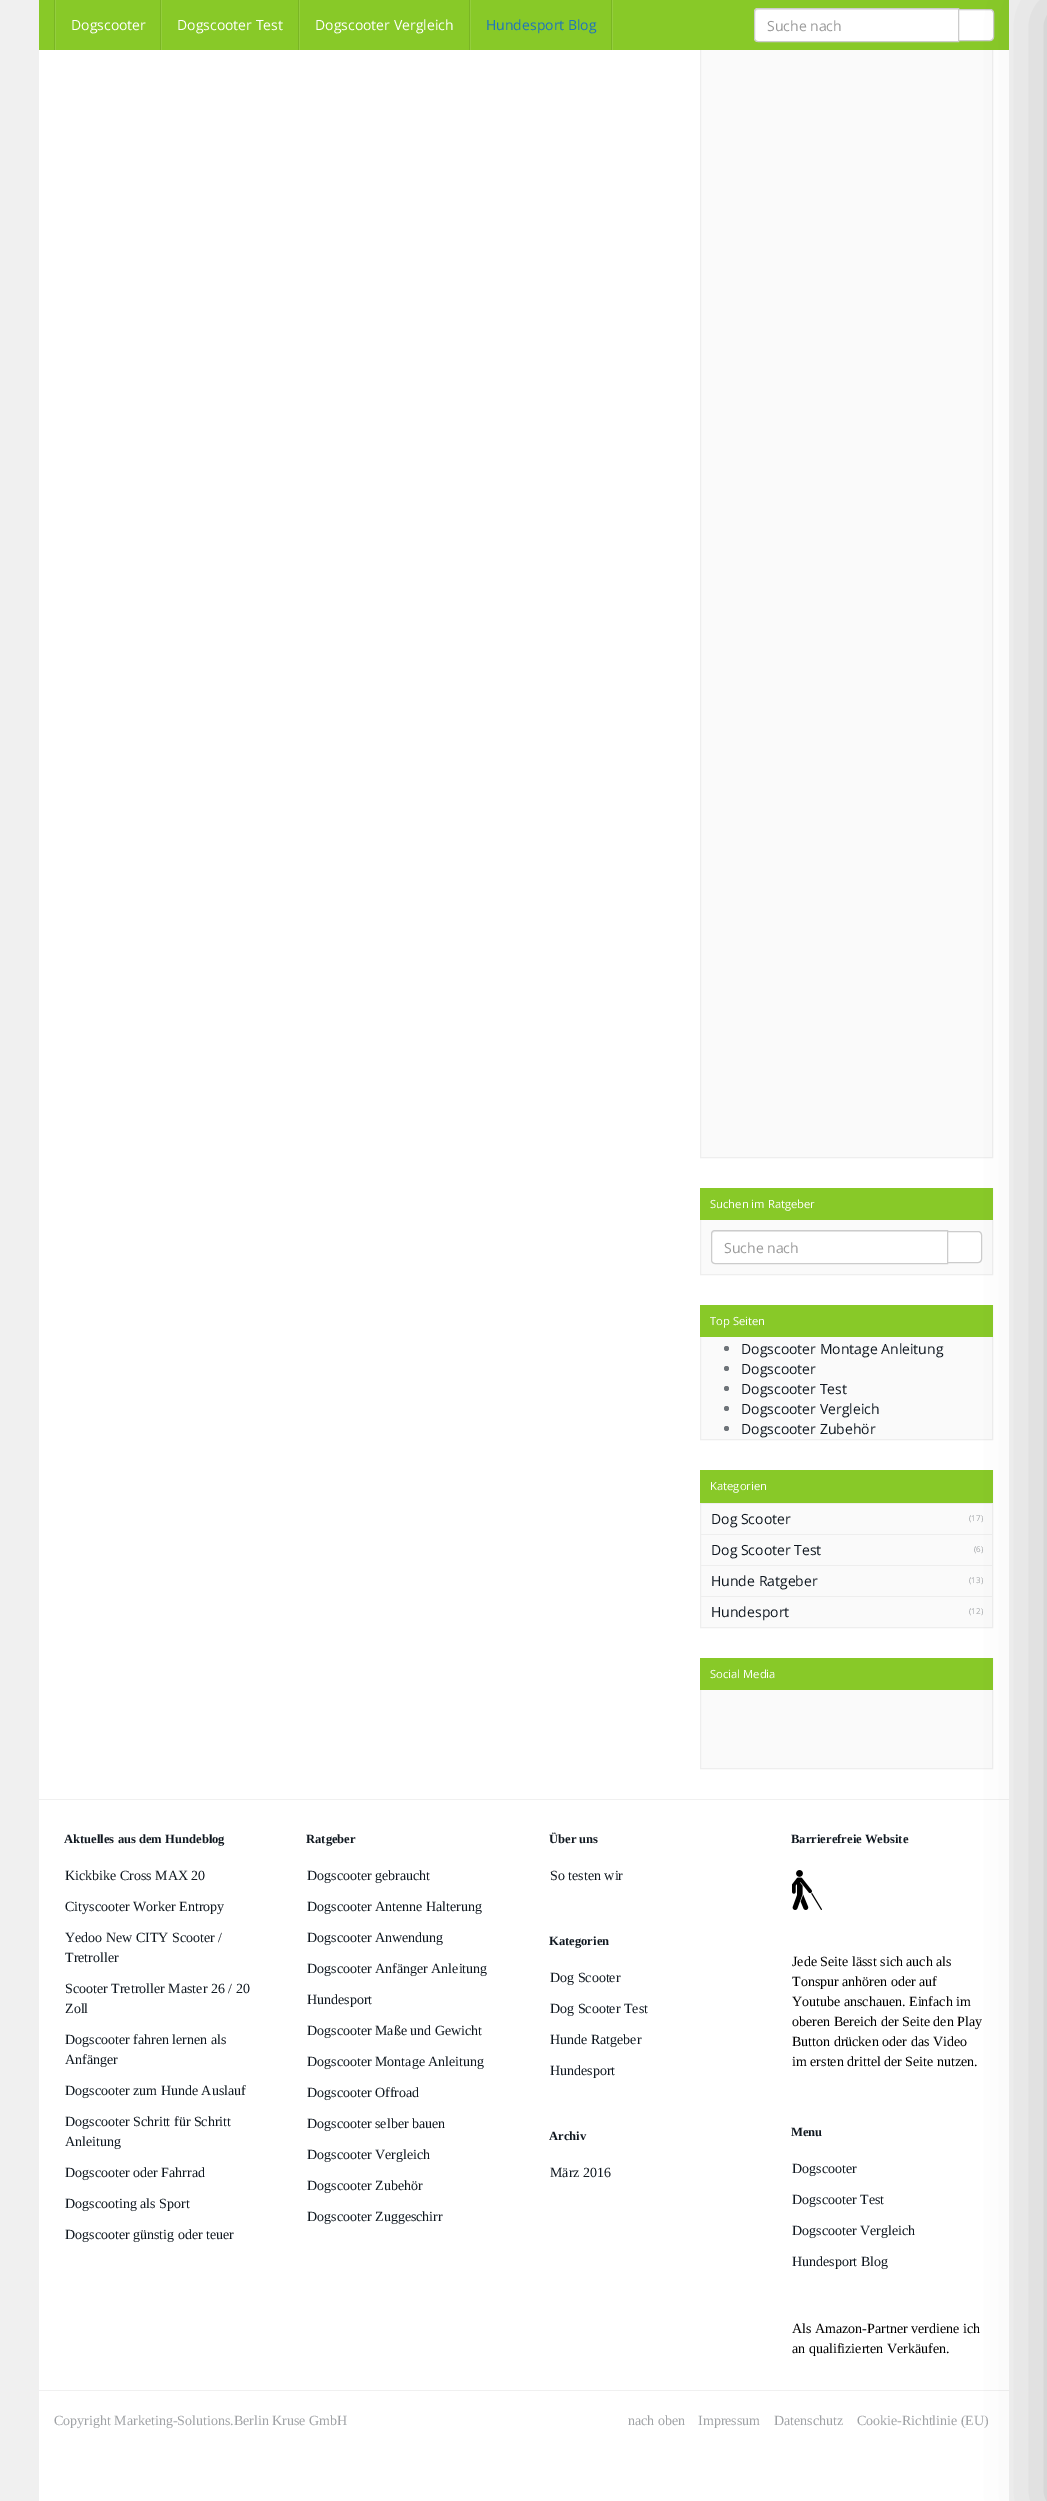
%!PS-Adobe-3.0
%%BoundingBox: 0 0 1047 2501
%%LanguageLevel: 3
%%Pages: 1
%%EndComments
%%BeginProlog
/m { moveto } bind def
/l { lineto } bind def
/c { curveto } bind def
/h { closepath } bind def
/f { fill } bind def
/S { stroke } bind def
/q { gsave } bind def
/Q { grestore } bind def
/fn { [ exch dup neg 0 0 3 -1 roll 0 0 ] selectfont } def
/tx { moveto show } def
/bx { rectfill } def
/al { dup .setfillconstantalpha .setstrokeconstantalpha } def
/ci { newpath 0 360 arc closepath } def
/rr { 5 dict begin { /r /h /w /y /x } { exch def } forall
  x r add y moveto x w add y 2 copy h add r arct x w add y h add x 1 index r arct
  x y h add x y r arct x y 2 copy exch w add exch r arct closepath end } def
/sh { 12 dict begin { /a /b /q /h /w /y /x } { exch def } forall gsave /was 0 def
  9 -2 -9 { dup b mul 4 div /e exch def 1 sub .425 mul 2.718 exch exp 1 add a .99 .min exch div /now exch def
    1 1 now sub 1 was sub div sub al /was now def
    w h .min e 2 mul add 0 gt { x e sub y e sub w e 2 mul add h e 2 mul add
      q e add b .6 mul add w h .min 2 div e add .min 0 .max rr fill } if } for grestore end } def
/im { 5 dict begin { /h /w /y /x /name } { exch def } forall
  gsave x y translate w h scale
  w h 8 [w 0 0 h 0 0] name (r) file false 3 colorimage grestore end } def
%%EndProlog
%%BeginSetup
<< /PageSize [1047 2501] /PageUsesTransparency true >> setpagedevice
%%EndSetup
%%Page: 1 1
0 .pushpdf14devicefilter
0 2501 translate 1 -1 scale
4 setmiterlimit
0.941 setgray
0 0 1047 2501 bx
1 setgray
39 50 970 1749 bx
0.98 setgray
701 50 291 1107 bx
0.933 setgray
700.5 -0.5 292 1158 rectstroke
0.533 0.788 0.157 setrgbcolor
39 0 970 50 bx
0.58 0.808 0.243 setrgbcolor
612 0 1 50 bx
0.478 0.71 0.141 setrgbcolor
54 0 1 50 bx
160 0 1 50 bx
0.58 0.808 0.243 setrgbcolor
55 0 1 50 bx
/OpenSans-Regular 14 fn
1 setgray
(Dogscooter) 71 30 tx
0.478 0.71 0.141 setrgbcolor
298 0 1 50 bx
0.58 0.808 0.243 setrgbcolor
161 0 1 50 bx
1 setgray
(Dogscooter Test) 177 30 tx
0.478 0.71 0.141 setrgbcolor
469 0 1 50 bx
0.58 0.808 0.243 setrgbcolor
299 0 1 50 bx
1 setgray
(Dogscooter Vergleich) 315 30 tx
0.478 0.71 0.141 setrgbcolor
611 0 1 50 bx
0.58 0.808 0.243 setrgbcolor
470 0 1 50 bx
0.118 0.451 0.745 setrgbcolor
(Hundesport Blog) 486 30 tx
1 setgray
758 8 m 959 8 l 959 42 l 758 42 l 756 42 754 40 754 38 c 754 12 l 754 10 756 8 758 8 c h f
0.925 setgray
758 10 m 958 10 l 958 9 l 757 9 l 755 10 755 11 755 13 c 755 11 756 10 758 10 c h f
0.8 setgray
758 8.5 m 958.5 8.5 l 958.5 41.5 l 758 41.5 l 756 41.5 754.5 40 754.5 38 c 754.5 12 l 754.5 10 756 8.5 758 8.5 c h S
0.6 setgray
(Suche nach) 767 31 tx
1 setgray
958.5 9.5 m 990 9.5 l 992 9.5 993.5 11 993.5 13 c 993.5 37 l 993.5 39 992 40.5 990 40.5 c 958.5 40.5 l h q f Q
0.8 setgray
S
0.98 setgray
701 1220 291 54 bx
0.933 setgray
700.5 1188.5 292 86 rectstroke
0.533 0.788 0.157 setrgbcolor
700 1188 293 32 bx
1 setgray
715 1230 m 948 1230 l 948 1264 l 715 1264 l 713 1264 711 1262 711 1260 c 711 1234 l 711 1232 713 1230 715 1230 c h f
0.925 setgray
715 1232 m 947 1232 l 947 1231 l 715 1231 l 713 1231 712 1233 712 1235 c 712 1233 713 1232 715 1232 c h f
0.8 setgray
715 1230.5 m 947.5 1230.5 l 947.5 1263.5 l 715 1263.5 l 713 1263.5 711.5 1262 711.5 1260 c 711.5 1234 l 711.5 1232 713 1230.5 715 1230.5 c h S
1 setgray
947.5 1231.5 m 978 1231.5 l 980 1231.5 981.5 1233 981.5 1235 c 981.5 1259 l 981.5 1261 980 1262.5 978 1262.5 c 947.5 1262.5 l h q f Q
0.8 setgray
S
0.98 setgray
701 1337 291 102 bx
0.933 setgray
700.5 1305.5 292 134 rectstroke
0.533 0.788 0.157 setrgbcolor
700 1305 293 32 bx
0.98 setgray
701 1504 291 123 bx
0.933 setgray
700.5 1470.5 292 157 rectstroke
0.533 0.788 0.157 setrgbcolor
700 1470 293 33 bx
0.933 setgray
701 1503 291 1 bx
701 1534 291 1 bx
701 1565 291 1 bx
701 1596 291 1 bx
0.98 setgray
701 1690 291 78 bx
0.933 setgray
700.5 1658.5 292 110 rectstroke
0.533 0.788 0.157 setrgbcolor
700 1658 293 32 bx
1 setgray
39 1800 970 590 bx
39 2391 970 110 bx
0 setgray
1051 10 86 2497 0 30 0.2 sh
/OpenSans-Regular 11.25 fn
1 setgray
(Suchen im Ratgeber) 710 1208 tx
/OpenSans-Regular 14 fn
0.6 setgray
(Suche nach) 724 1253 tx
/OpenSans-Regular 11.25 fn
1 setgray
(Top Seiten) 710 1325 tx
0.435 0.455 0.475 setrgbcolor
726.5 1348.5 2.5 ci f
/OpenSans-Regular 14 fn
0.063 0.094 0.125 setrgbcolor
(Dogscooter Montage Anleitung) 741 1354 tx
0.435 0.455 0.475 setrgbcolor
726.5 1368.5 2.5 ci f
0.063 0.094 0.125 setrgbcolor
(Dogscooter) 741 1374 tx
0.435 0.455 0.475 setrgbcolor
726.5 1388.5 2.5 ci f
0.063 0.094 0.125 setrgbcolor
(Dogscooter Test) 741 1394 tx
0.435 0.455 0.475 setrgbcolor
726.5 1408.5 2.5 ci f
0.063 0.094 0.125 setrgbcolor
(Dogscooter Vergleich) 741 1414 tx
0.435 0.455 0.475 setrgbcolor
726.5 1428.5 2.5 ci f
0.063 0.094 0.125 setrgbcolor
(Dogscooter Zubehör) 741 1434 tx
/OpenSans-Regular 11.25 fn
1 setgray
(Kategorien) 710 1490 tx
/OpenSans-Regular 14 fn
0.063 0.094 0.125 setrgbcolor
(Dog Scooter) 711 1524 tx
/OpenSans-Regular 8 fn
0.624 0.635 0.647 setrgbcolor
(\(17\)) 969 1521 tx
/OpenSans-Regular 14 fn
0.063 0.094 0.125 setrgbcolor
(Dog Scooter Test) 711 1555 tx
/OpenSans-Regular 8 fn
0.624 0.635 0.647 setrgbcolor
(\(6\)) 974 1552 tx
/OpenSans-Regular 14 fn
0.063 0.094 0.125 setrgbcolor
(Hunde Ratgeber) 711 1586 tx
/OpenSans-Regular 8 fn
0.624 0.635 0.647 setrgbcolor
(\(13\)) 969 1583 tx
/OpenSans-Regular 14 fn
0.063 0.094 0.125 setrgbcolor
(Hundesport) 711 1617 tx
/OpenSans-Regular 8 fn
0.624 0.635 0.647 setrgbcolor
(\(12\)) 969 1614 tx
/OpenSans-Regular 11.25 fn
1 setgray
(Social Media) 710 1678 tx
/LiberationSerif-Bold 12.6 fn
0.063 0.094 0.125 setrgbcolor
(Aktuelles aus dem Hundeblog) 64 1843 tx
/LiberationSerif-Regular 14 fn
(Kickbike Cross MAX 20) 65 1880 tx
(Cityscooter Worker Entropy) 65 1911 tx
(Yedoo New CITY Scooter /) 65 1942 tx
(Tretroller) 65 1962 tx
(Scooter Tretroller Master 26 / 20) 65 1993 tx
(Zoll) 65 2013 tx
(Dogscooter fahren lernen als) 65 2044 tx
(Anfänger) 65 2064 tx
(Dogscooter zum Hunde Auslauf) 65 2095 tx
(Dogscooter Schritt für Schritt) 65 2126 tx
(Anleitung) 65 2146 tx
(Dogscooter oder Fahrrad) 65 2177 tx
(Dogscooting als Sport) 65 2208 tx
(Dogscooter günstig oder teuer) 65 2239 tx
/LiberationSerif-Bold 12.6 fn
(Ratgeber) 306 1843 tx
/LiberationSerif-Regular 14 fn
(Dogscooter gebraucht) 307 1880 tx
(Dogscooter Antenne Halterung) 307 1911 tx
(Dogscooter Anwendung) 307 1942 tx
(Dogscooter Anfänger Anleitung) 307 1973 tx
(Hundesport) 307 2004 tx
(Dogscooter Maße und Gewicht) 307 2035 tx
(Dogscooter Montage Anleitung) 307 2066 tx
(Dogscooter Offroad) 307 2097 tx
(Dogscooter selber bauen) 307 2128 tx
(Dogscooter Vergleich) 307 2159 tx
(Dogscooter Zubehör) 307 2190 tx
(Dogscooter Zuggeschirr) 307 2221 tx
/LiberationSerif-Bold 12.6 fn
(Über uns) 549 1843 tx
/LiberationSerif-Regular 14 fn
(So testen wir) 550 1880 tx
/LiberationSerif-Bold 12.6 fn
(Kategorien) 549 1945 tx
/LiberationSerif-Regular 14 fn
(Dog Scooter) 550 1982 tx
(Dog Scooter Test) 550 2013 tx
(Hunde Ratgeber) 550 2044 tx
(Hundesport) 550 2075 tx
/LiberationSerif-Bold 12.6 fn
(Archiv) 549 2140 tx
/LiberationSerif-Regular 14 fn
(März 2016) 550 2177 tx
/LiberationSerif-Bold 12.6 fn
(Barrierefreie Website) 791 1843 tx
(image0.raw) 792 1870 30 40 im
/LiberationSerif-Regular 14 fn
0 setgray
(Jede Seite lässt sich auch als) 792 1966 tx
(Tonspur anhören oder auf) 792 1986 tx
(Youtube anschauen. Einfach im) 792 2006 tx
(oberen Bereich der Seite den Play) 792 2026 tx
(Button drücken oder das Video) 792 2046 tx
(im ersten drittel der Seite nutzen.) 792 2066 tx
/LiberationSerif-Bold 12.6 fn
0.063 0.094 0.125 setrgbcolor
(Menu) 791 2136 tx
/LiberationSerif-Regular 14 fn
(Dogscooter) 792 2173 tx
(Dogscooter Test) 792 2204 tx
(Dogscooter Vergleich) 792 2235 tx
(Hundesport Blog) 792 2266 tx
0 setgray
(Als Amazon-Partner verdiene ich) 792 2333 tx
(an qualifizierten Verkäufen.) 792 2353 tx
0.624 0.635 0.647 setrgbcolor
(Copyright Marketing-Solutions.Berlin Kruse GmbH) 54 2425 tx
(nach oben) 628 2425 tx
(Impressum) 698 2425 tx
(Datenschutz) 774 2425 tx
(Cookie-Richtlinie \(EU\)) 857 2425 tx
.poppdf14devicefilter showpage
%%EOF
